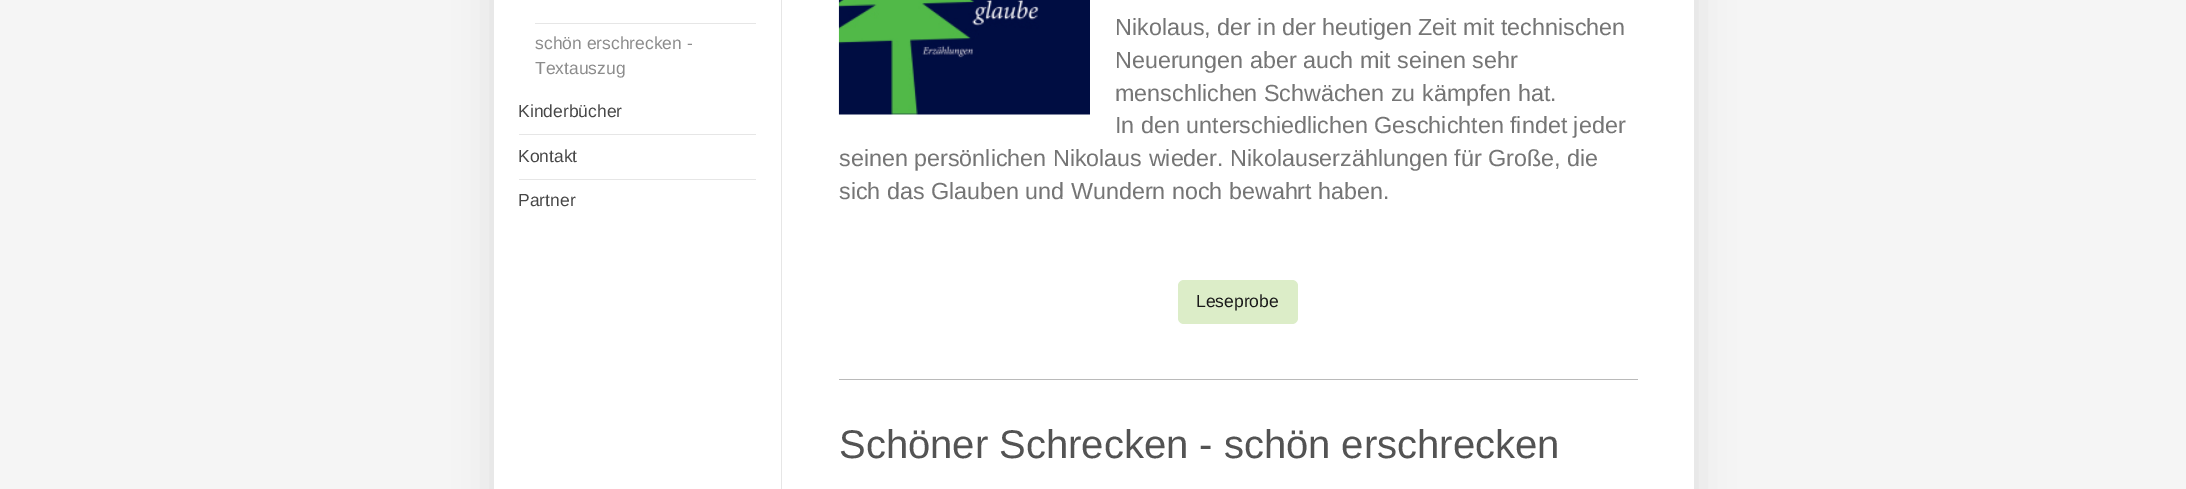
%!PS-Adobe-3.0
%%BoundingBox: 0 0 2186 489
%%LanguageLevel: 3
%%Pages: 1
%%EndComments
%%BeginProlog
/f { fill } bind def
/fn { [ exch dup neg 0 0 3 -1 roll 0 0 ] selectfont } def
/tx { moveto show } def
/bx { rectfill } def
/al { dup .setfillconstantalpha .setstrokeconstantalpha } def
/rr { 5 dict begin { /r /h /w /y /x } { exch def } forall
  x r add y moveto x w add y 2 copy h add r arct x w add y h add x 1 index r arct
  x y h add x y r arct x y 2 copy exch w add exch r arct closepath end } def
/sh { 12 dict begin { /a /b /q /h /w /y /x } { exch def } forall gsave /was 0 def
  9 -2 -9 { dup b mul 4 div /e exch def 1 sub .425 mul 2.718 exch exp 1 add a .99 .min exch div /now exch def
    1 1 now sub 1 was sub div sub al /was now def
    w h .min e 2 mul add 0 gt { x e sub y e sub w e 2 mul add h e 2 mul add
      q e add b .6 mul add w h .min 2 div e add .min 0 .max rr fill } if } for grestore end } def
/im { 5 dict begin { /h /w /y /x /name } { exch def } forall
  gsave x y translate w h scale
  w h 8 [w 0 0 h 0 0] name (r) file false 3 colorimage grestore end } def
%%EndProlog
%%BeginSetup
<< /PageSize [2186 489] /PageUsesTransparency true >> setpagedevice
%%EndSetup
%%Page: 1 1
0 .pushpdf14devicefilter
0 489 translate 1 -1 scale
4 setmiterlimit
0.961 setgray
0 0 2186 489 bx
0 setgray
494 -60 1200 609 2.5 19 0.1 sh
1 setgray
494 0 1200 489 bx
0.902 setgray
535 23 221 1 bx
/LiberationSans-Regular 17.5 fn
0.549 setgray
(schön erschrecken -) 535 49 tx
(Textauszug) 535 74 tx
0.902 setgray
519 134 237 1 bx
0.278 setgray
(Kinderbücher) 518 117 tx
0.902 setgray
519 179 237 1 bx
0.278 setgray
(Kontakt) 518 162 tx
(Partner) 518 206 tx
0.902 setgray
781 0 1 489 bx
(image0.raw) 838 0 252 115 im
/LiberationSans-Regular 23.3 fn
0.459 setgray
(Nikolaus, der in der heutigen Zeit mit technischen) 1115 35 tx
(Neuerungen aber auch mit seinen sehr) 1115 68 tx
(menschlichen Schwächen zu kämpfen hat.) 1115 101 tx
(In den unterschiedlichen Geschichten findet jeder) 1115 133 tx
(seinen persönlichen Nikolaus wieder. Nikolauserzählungen für Große, die) 839 166 tx
(sich das Glauben und Wundern noch bewahrt haben.) 839 199 tx
0.863 0.929 0.784 setrgbcolor
1178 280 120 44 6 rr f
/LiberationSans-Regular 17.5 fn
0.102 setgray
(Leseprobe) 1196 307 tx
0.729 setgray
839 379 799 1 bx
/LiberationSans-Regular 40 fn
0.325 setgray
(Schöner Schrecken - schön erschrecken) 839 458 tx
.poppdf14devicefilter showpage
%%EOF
